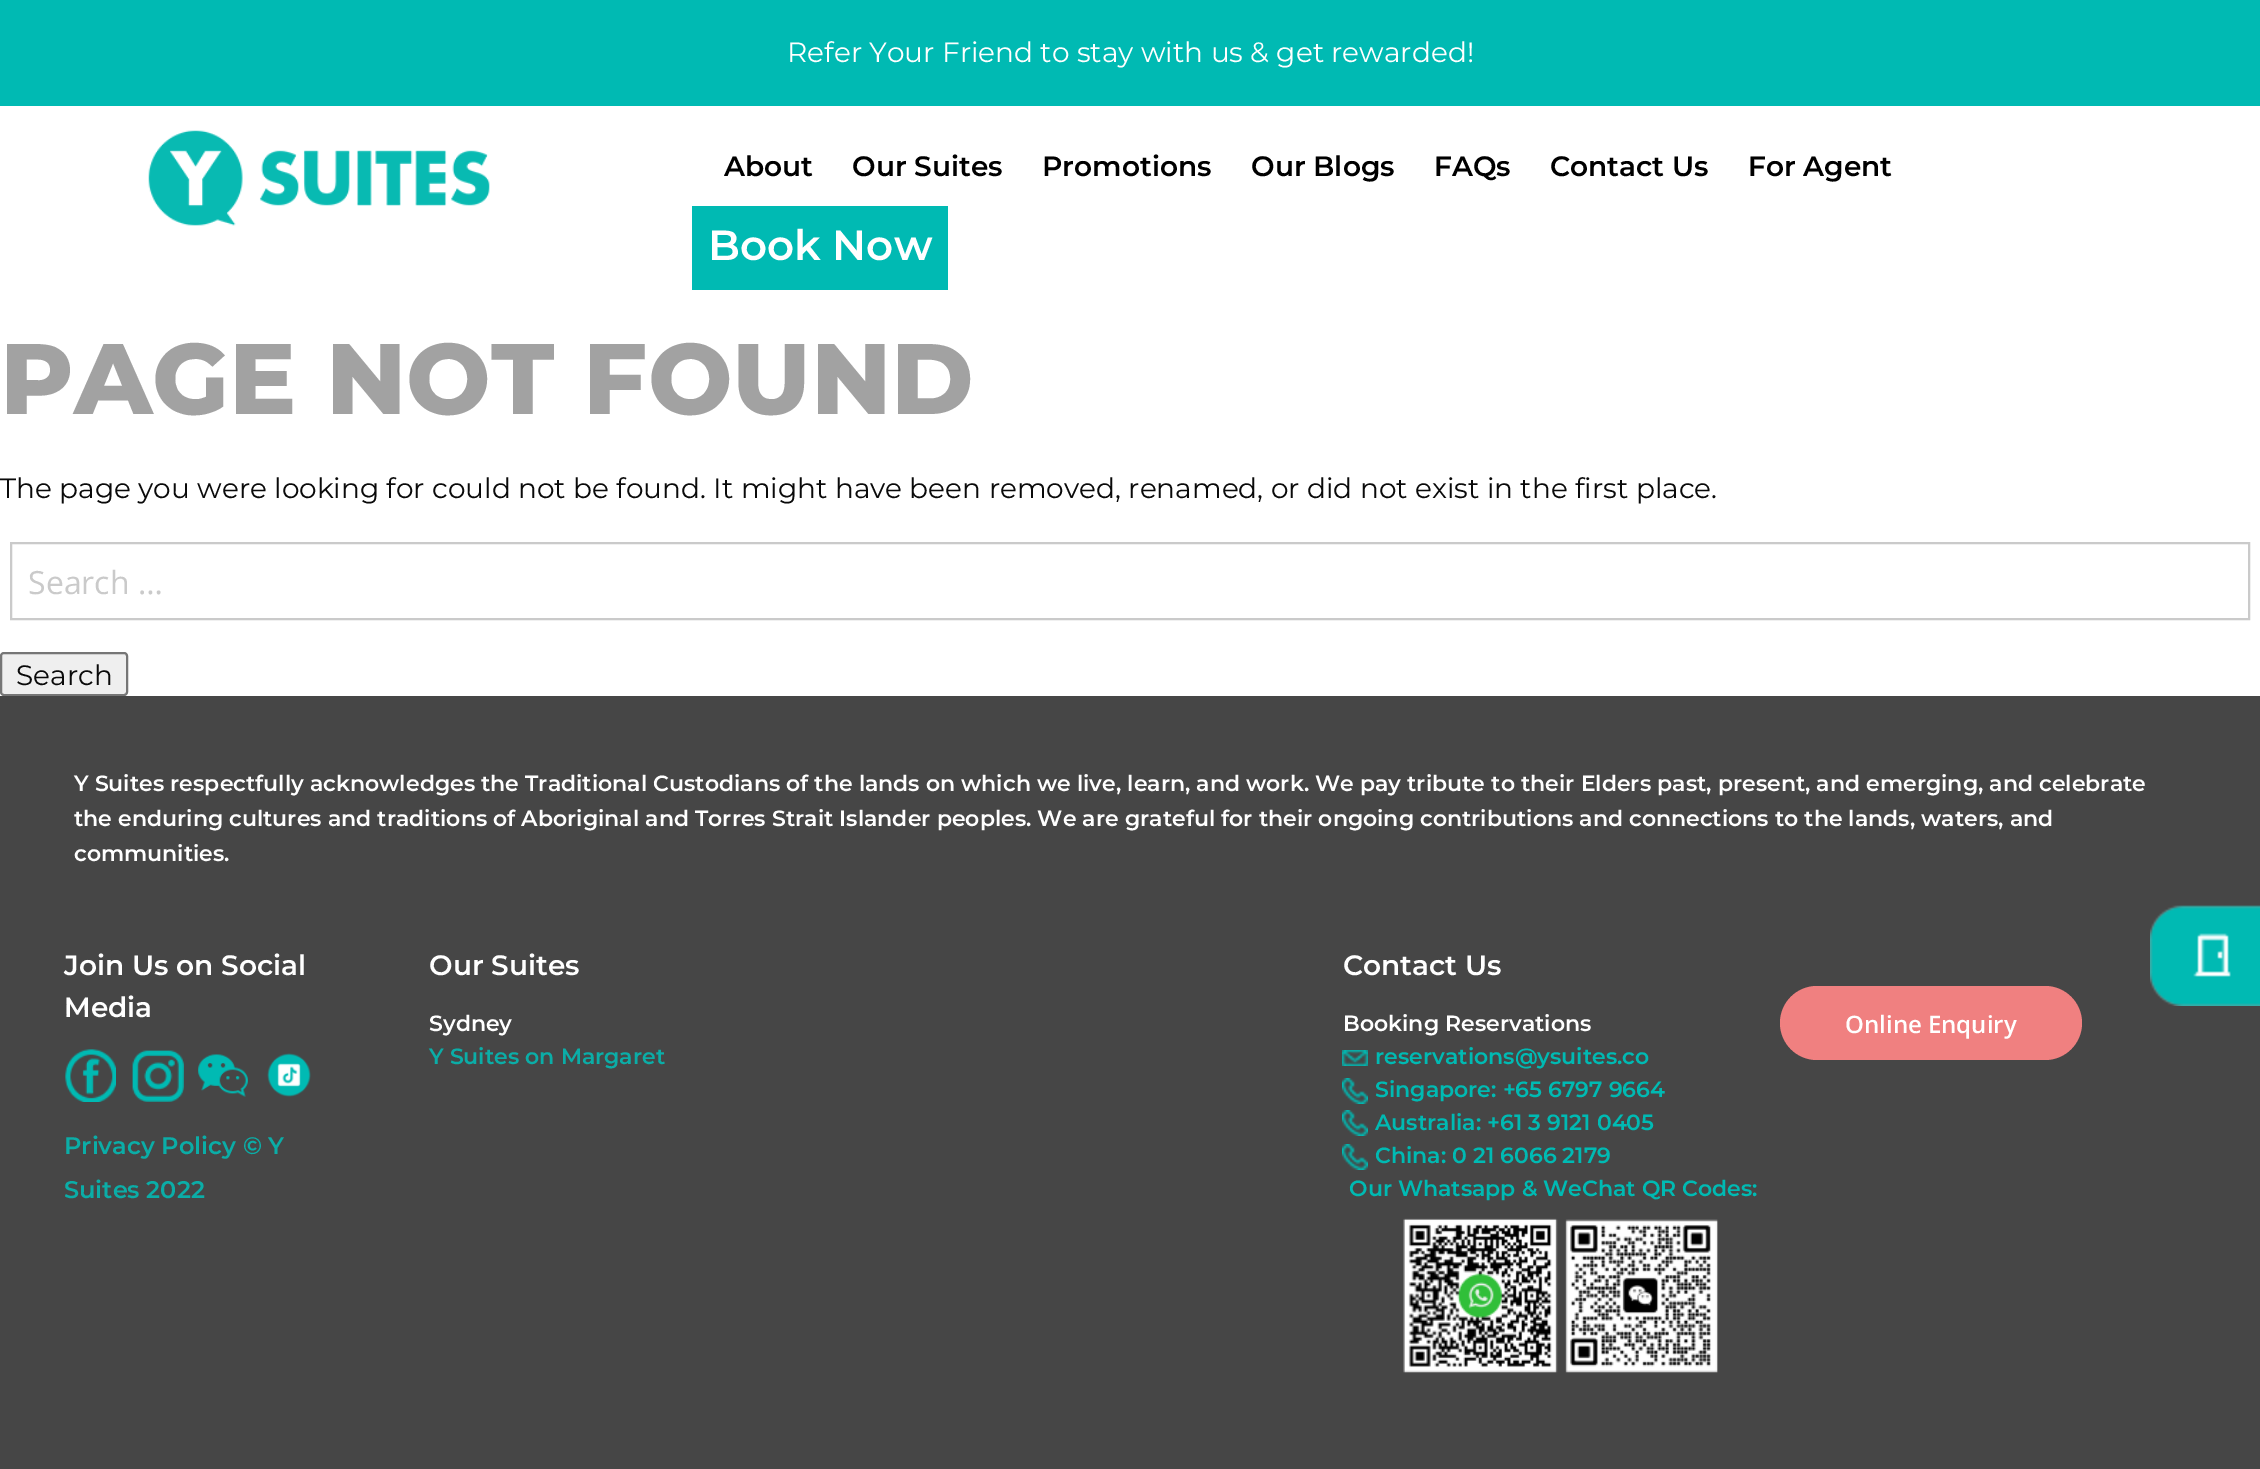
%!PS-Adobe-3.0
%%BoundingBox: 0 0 2260 1469
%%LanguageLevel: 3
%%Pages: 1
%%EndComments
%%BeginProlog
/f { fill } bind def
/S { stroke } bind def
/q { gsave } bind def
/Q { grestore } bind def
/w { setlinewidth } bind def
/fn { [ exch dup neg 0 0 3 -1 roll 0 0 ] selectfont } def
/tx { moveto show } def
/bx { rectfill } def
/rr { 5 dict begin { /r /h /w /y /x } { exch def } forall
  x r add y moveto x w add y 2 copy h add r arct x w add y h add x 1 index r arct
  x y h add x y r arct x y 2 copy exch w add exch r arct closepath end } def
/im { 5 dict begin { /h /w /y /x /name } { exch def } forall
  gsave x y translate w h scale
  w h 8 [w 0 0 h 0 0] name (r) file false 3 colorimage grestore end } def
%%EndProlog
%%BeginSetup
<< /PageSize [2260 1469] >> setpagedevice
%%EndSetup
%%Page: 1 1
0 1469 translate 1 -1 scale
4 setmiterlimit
1 setgray
0 0 2260 1469 bx
0 0.729 0.702 setrgbcolor
0 0 2260 106 bx
/Montserrat-Regular 28 fn
1 setgray
(Refer Your Friend to stay with us & get rewarded!) 787 62 tx
(image0.raw) 148 130 342 96 im
/Montserrat-SemiBold 28 fn
0 setgray
(About) 724 176 tx
(Our Suites) 852 176 tx
(Promotions) 1042 176 tx
(Our Blogs) 1251 176 tx
(FAQs) 1434 176 tx
(Contact Us) 1550 176 tx
(For Agent) 1748 176 tx
0 0.729 0.702 setrgbcolor
692 206 256 84 bx
/Montserrat-SemiBold 42 fn
1 setgray
(Book Now) 708 260 tx
/Montserrat-ExtraBold 100 fn
0.635 setgray
(PAGE NOT FOUND) 0 414 tx
/Montserrat-Regular 28 fn
0.039 setgray
(The page you were looking for could not be found. It might have been removed, renamed, or did not exist in the first place.) 0 498 tx
0.792 setgray
2 w
11 543 2238 76 rectstroke
/OpenSans-Regular 32 fn
(Search …) 28 594 tx
0.937 setgray
1 653 126 42 3 rr q f Q
0.463 setgray
S
/Montserrat-Regular 28 fn
0.039 setgray
(Search) 16 685 tx
0.275 setgray
0 696 2260 773 bx
/Montserrat-SemiBold 22 fn
1 setgray
(Y Suites respectfully acknowledges the Traditional Custodians of the lands on which we live, learn, and work. We pay tribute to their Elders past, present, and emerging, and celebrate) 74 791 tx
(the enduring cultures and traditions of Aboriginal and Torres Strait Islander peoples. We are grateful for their ongoing contributions and connections to the lands, waters, and) 74 826 tx
(communities.) 74 861 tx
/Montserrat-SemiBold 28 fn
(Join Us on Social) 64 975 tx
(Media) 64 1017 tx
(image1.raw) 65 1049 51 53 im
(image2.raw) 132 1050 52 52 im
(image3.raw) 198 1054 50 43 im
(image4.raw) 267 1053 44 44 im
/Montserrat-SemiBold 24 fn
0.043 0.678 0.655 setrgbcolor
(Privacy Policy © Y) 64 1154 tx
(Suites 2022) 64 1198 tx
/Montserrat-SemiBold 28 fn
1 setgray
(Our Suites) 429 975 tx
/Montserrat-SemiBold 22 fn
(Sydney) 429 1031 tx
0.043 0.678 0.655 setrgbcolor
(Y Suites on Margaret) 429 1064 tx
/Montserrat-SemiBold 28 fn
1 setgray
(Contact Us) 1343 975 tx
/Montserrat-SemiBold 22 fn
(Booking Reservations) 1343 1031 tx
(image5.raw) 1342 1050 26 16 im
0 0.729 0.702 setrgbcolor
(reservations@ysuites.co) 1375 1064 tx
(image6.raw) 1342 1078 26 26 im
(Singapore: +65 6797 9664) 1375 1097 tx
(image6.raw) 1342 1110 26 26 im
(Australia: +61 3 9121 0405) 1375 1130 tx
(image6.raw) 1342 1144 26 26 im
(China: 0 21 6066 2179) 1375 1163 tx
(Our Whatsapp & WeChat QR Codes:) 1349 1196 tx
(image7.raw) 1403 1218 315 155 im
0.941 0.502 0.502 setrgbcolor
1780 986 302 74 37 rr f
/OpenSans-SemiBold 24 fn
1 setgray
(Online Enquiry) 1845 1033 tx
(image8.raw) 2150 905 110 101 im
showpage
%%EOF
